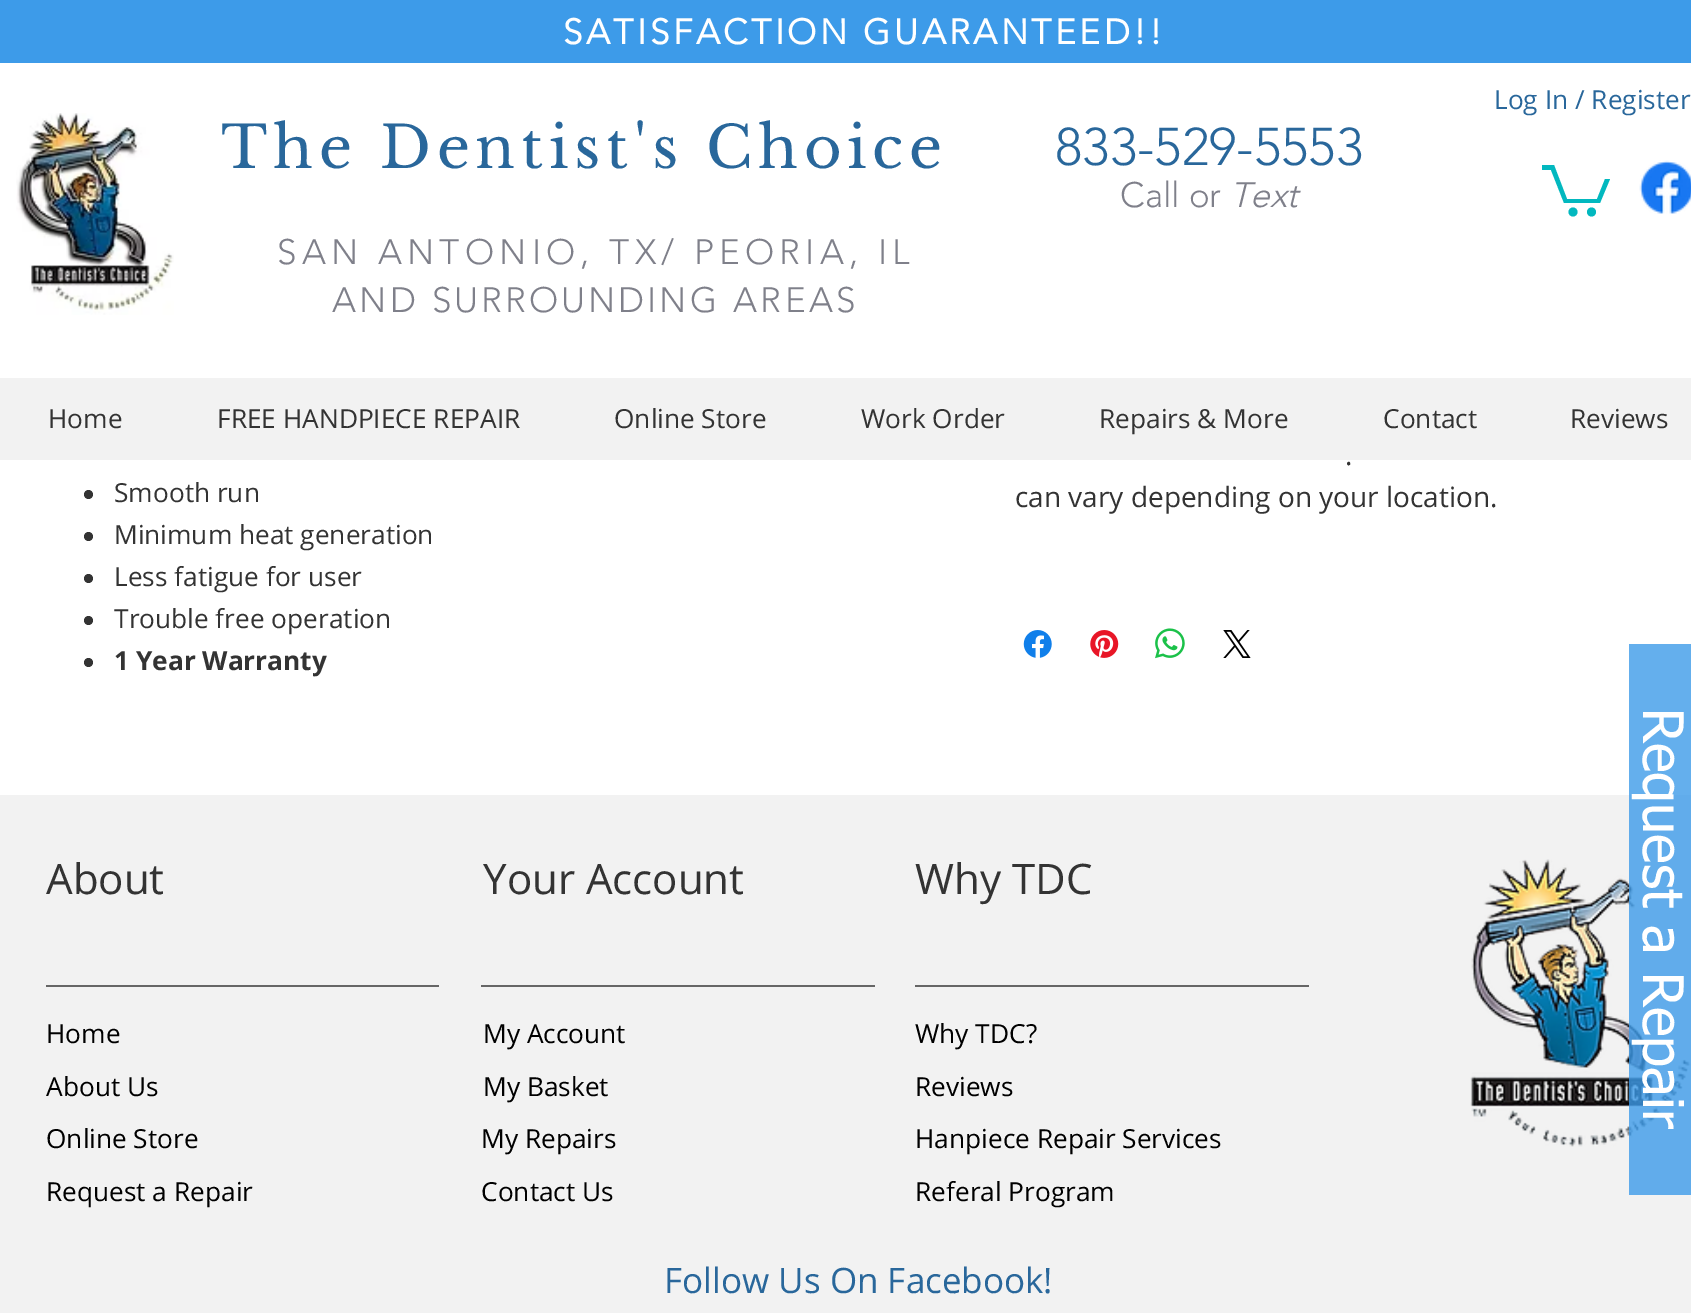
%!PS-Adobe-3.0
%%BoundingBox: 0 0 1691 1313
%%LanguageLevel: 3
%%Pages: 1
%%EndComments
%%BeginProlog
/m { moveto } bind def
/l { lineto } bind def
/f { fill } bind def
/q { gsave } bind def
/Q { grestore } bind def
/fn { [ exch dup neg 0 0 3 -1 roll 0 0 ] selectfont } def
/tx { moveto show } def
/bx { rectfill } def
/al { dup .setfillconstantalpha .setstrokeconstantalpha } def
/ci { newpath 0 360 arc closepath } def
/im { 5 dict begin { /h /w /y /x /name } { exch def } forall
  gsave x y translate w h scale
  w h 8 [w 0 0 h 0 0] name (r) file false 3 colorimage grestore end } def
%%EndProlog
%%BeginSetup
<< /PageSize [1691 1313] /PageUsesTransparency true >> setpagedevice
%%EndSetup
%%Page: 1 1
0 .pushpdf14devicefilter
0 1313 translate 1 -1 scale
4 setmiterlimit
1 setgray
0 0 1691 1313 bx
0.239 0.608 0.914 setrgbcolor
0 0 1691 63 bx
/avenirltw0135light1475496-Bold 35 fn
1 setgray
563 44 m 3.5 0 (SATISFACTION GUARANTEED!!) ashow
/OpenSans-Regular 26.25 fn
0.161 0.404 0.608 setrgbcolor
(Log In / Register) 1494 109 tx
(image0.raw) 16 113 158 202 im
/LibreBaskerville-Regular 57.75 fn
221 168 m 5.75 0 (The Dentist's Choice) ashow
/avenirltw0135light1475496-Light 52.5 fn
(833-529-5553) 1055 165 tx
/avenirltw0135light1475496-Light 35 fn
0.498 0.502 0.541 setrgbcolor
(Call or) 1120 207 tx
/avenirltw0135light1475496-LightItalic 35 fn
(Text) 1230 207 tx
0.008 0.722 0.749 setrgbcolor
1610 179 m 1600 203 l 1564 203 l 1551 170 l 1542 170 l 1542 165 l 1554 165 l 1567 199 l 1597 199 l 1605 179 l f
1591.5 212 4.5 ci f
1573 212 4.5 ci f
(image1.raw) 1639 160 52 54 im
/avenirltw0135light1475496-Light 35 fn
0.498 0.502 0.541 setrgbcolor
277 264 m 5.25 0 (SAN ANTONIO, TX/ PEORIA, IL) ashow
332 312 m 3.5 0 (AND) ashow
432 312 m 3 0 (SURROUNDING) ashow
733 312 m 3.5 0 (AREAS) ashow
0.949 setgray
0 378 1691 82 bx
/OpenSans-Regular 26.25 fn
0.2 setgray
(Home) 48 428 tx
(FREE HANDPIECE REPAIR) 217 428 tx
(Online Store) 614 428 tx
(Work Order) 861 428 tx
(Repairs & More) 1099 428 tx
(Contact) 1383 428 tx
(Reviews) 1570 428 tx
88.5 494.5 4.5 ci f
(Smooth run) 114 502 tx
88.5 536.5 4.5 ci f
(Minimum heat generation) 114 544 tx
88.5 578.5 4.5 ci f
(Less fatigue for user) 114 586 tx
88.5 620.5 4.5 ci f
(Trouble free operation) 114 628 tx
88.5 662.5 4.5 ci f
/OpenSans-Bold 26.25 fn
(1 Year Warranty) 114 670 tx
/OpenSans-Regular 28 fn
(.) 1345 465 tx
(can vary depending on your location.) 1015 507 tx
(image2.raw) 1023 630 29 28 im
(image3.raw) 1090 630 29 28 im
(image4.raw) 1155 628 30 31 im
(image5.raw) 1223 630 28 28 im
0.949 setgray
0 795 1691 518 bx
/OpenSans-Regular 42 fn
0.2 setgray
(About) 46 894 tx
(Your Account) 483 894 tx
(Why TDC) 915 894 tx
(image6.raw) 1470 859 221 288 im
0.4 setgray
46 985 393 2 bx
481 985 394 2 bx
915 985 394 2 bx
/OpenSans-Regular 26.25 fn
0 setgray
(Home) 46 1043 tx
(My Account) 483 1043 tx
(Why TDC?) 915 1043 tx
(About Us) 46 1096 tx
(My Basket) 483 1096 tx
(Reviews) 915 1096 tx
(Online Store) 46 1148 tx
(My Repairs) 481 1148 tx
(Hanpiece Repair Services) 915 1148 tx
(Request a Repair) 46 1201 tx
(Contact Us) 481 1201 tx
(Referal Program) 915 1201 tx
/OpenSans-Regular 35 fn
0.161 0.404 0.608 setrgbcolor
(Follow Us On Facebook!) 664 1293 tx
0.8 al
0.239 0.608 0.914 setrgbcolor
1629 644 62 551 bx
/tahoma-Regular 56 fn
1 al
1 setgray
q 1643 708 translate 90 rotate 0 0 m (Request a Repair) show Q
.poppdf14devicefilter showpage
%%EOF
